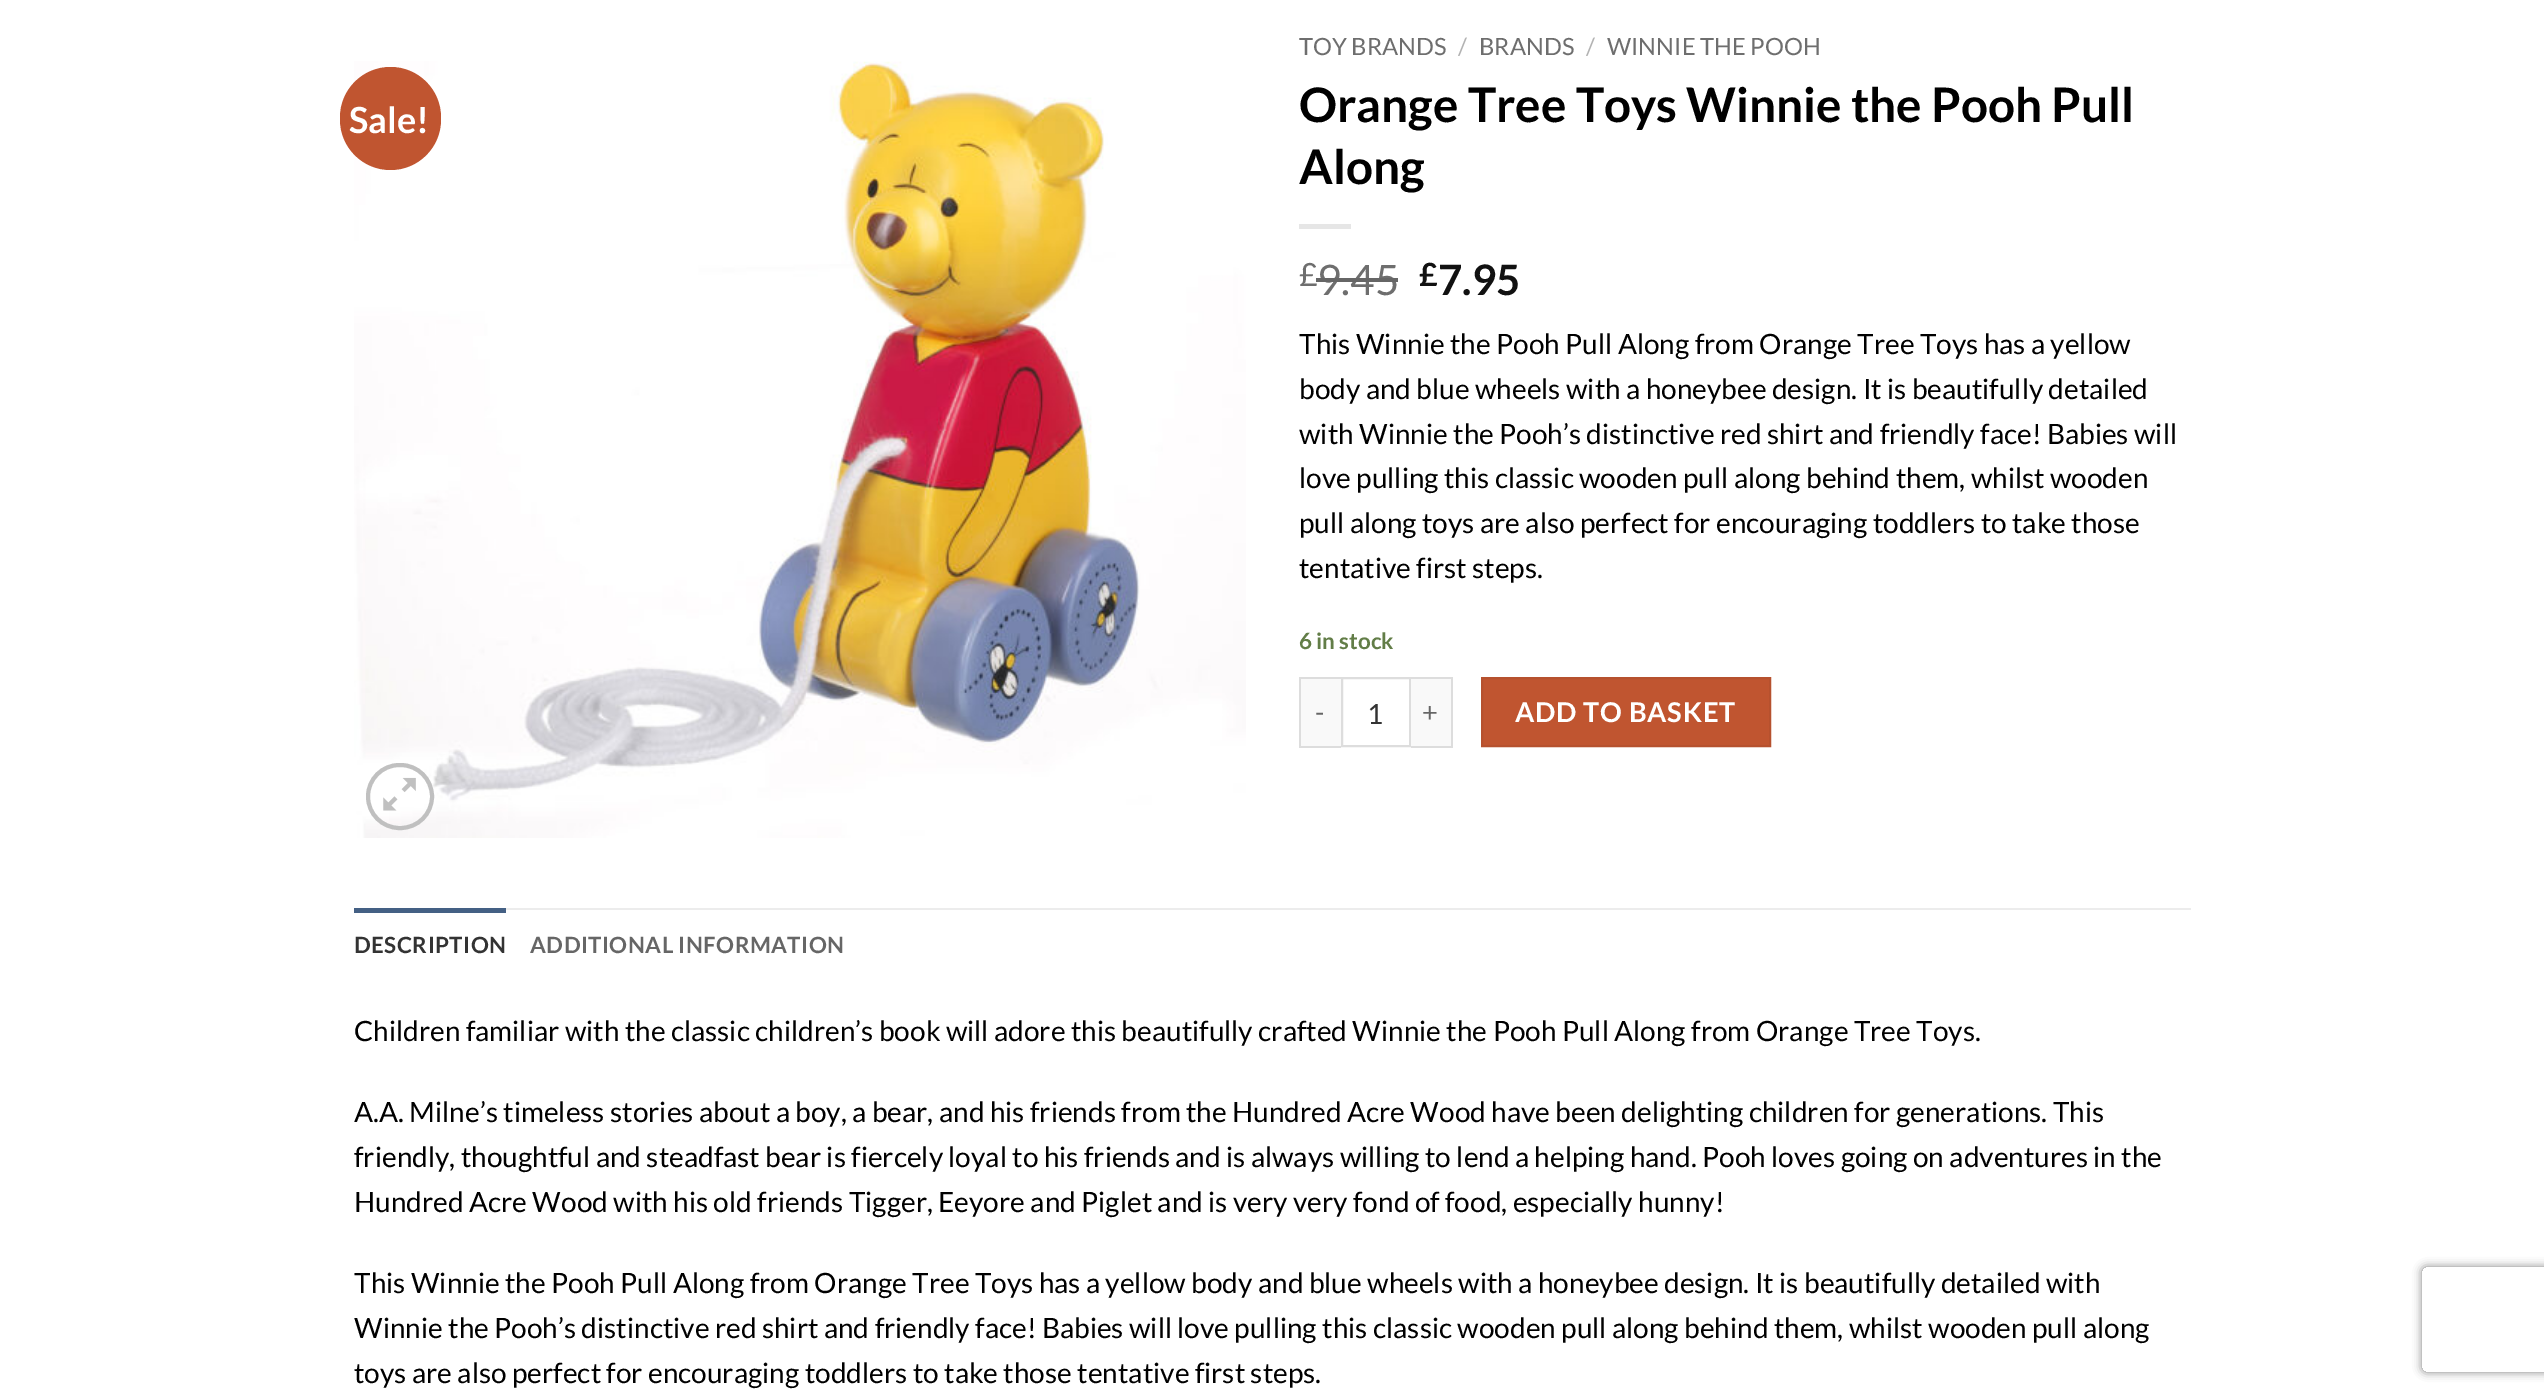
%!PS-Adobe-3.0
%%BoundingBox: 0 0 2544 1396
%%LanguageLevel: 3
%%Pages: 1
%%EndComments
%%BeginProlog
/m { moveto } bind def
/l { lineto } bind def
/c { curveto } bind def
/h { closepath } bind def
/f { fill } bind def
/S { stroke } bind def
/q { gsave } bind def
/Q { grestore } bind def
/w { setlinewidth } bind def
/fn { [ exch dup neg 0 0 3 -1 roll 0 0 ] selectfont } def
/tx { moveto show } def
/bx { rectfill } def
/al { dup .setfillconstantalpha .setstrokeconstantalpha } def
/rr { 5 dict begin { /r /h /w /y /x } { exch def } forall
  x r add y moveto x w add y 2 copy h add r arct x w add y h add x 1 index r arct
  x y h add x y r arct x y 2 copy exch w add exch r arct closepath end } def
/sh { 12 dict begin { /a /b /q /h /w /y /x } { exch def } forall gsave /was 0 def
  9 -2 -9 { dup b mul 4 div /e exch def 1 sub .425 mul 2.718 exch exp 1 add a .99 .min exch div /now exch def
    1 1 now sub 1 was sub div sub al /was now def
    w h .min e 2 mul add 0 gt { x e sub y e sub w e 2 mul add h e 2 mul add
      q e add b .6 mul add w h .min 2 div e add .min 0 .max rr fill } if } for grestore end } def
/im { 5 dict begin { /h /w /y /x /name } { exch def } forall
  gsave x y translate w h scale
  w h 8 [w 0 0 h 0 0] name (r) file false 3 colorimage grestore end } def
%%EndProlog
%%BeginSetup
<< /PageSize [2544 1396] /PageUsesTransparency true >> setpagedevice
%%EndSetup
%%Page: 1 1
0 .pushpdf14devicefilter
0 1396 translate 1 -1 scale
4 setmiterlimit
1 setgray
0 0 2544 1396 bx
(image0.raw) 354 61 892 777 im
0.753 0.333 0.188 setrgbcolor
340 67 101 103 50.5 rr f
/Lato-Bold 36 fn
1 setgray
(Sale!) 349 133 tx
0.753 setgray
4 w
368 765 64 63 31.5 rr S
(image1.raw) 383 777 33 34 im
/Lato-Regular 23.75 fn
0.431 setgray
(TOY BRANDS) 1299 55 tx
0.698 setgray
(/) 1458 55 tx
0.431 setgray
(BRANDS) 1479 55 tx
0.698 setgray
(/) 1586 55 tx
0.431 setgray
(WINNIE THE POOH) 1607 55 tx
/Lato-Bold 47.6 fn
0 setgray
(Orange Tree Toys Winnie the Pooh Pull) 1299 122 tx
(Along) 1299 184 tx
0.902 setgray
1299 224 52 5 bx
/Lato-Regular 32 fn
0.431 setgray
(£) 1299 286 tx
/Lato-Regular 42 fn
(9.45) 1317 295 tx
0.4 setgray
1316 278 82 4 bx
/Lato-Bold 32 fn
0.067 setgray
(£) 1419 286 tx
/Lato-Bold 42 fn
(7.95) 1438 295 tx
/Lato-Regular 28 fn
0 setgray
(This Winnie the Pooh Pull Along from Orange Tree Toys has a yellow) 1299 354 tx
(body and blue wheels with a honeybee design. It is beautifully detailed) 1299 399 tx
(with Winnie the Pooh’s distinctive red shirt and friendly face! Babies will) 1299 444 tx
(love pulling this classic wooden pull along behind them, whilst wooden) 1299 488 tx
(pull along toys are also perfect for encouraging toddlers to take those) 1299 533 tx
(tentative first steps.) 1299 578 tx
/Lato-Bold 22.4 fn
0.384 0.49 0.278 setrgbcolor
(6 in stock) 1299 649 tx
0.976 setgray
1301 679 40 67 bx
0.867 setgray
1299 677 42 2 bx
1299 746 42 2 bx
1299 677 2 70 bx
/Lato-Regular 27.25 fn
0.4 setgray
1315 722 m 0.75 0 (-) ashow
0.867 setgray
2 w
1342 678 68 68 rectstroke
/Lato-Regular 28 fn
0.2 setgray
(1) 1367 724 tx
0.976 setgray
1411 679 40 67 bx
0.867 setgray
1411 677 42 2 bx
1451 677 2 70 bx
1411 746 42 2 bx
/Lato-Regular 27.25 fn
0.4 setgray
1422 722 m 0.75 0 (+) ashow
0.753 0.333 0.188 setrgbcolor
1482 678 m 1770 678 l 1770 746 l 1482 746 l h q f Q
0.714 0.318 0.18 setrgbcolor
S
/Lato-Bold 27.25 fn
1 setgray
1515 722 m 0.75 0 (ADD TO BASKET) ashow
0.925 setgray
506 908 1685 2 bx
0.267 0.376 0.518 setrgbcolor
354 908 152 5 bx
/Lato-Bold 22.4 fn
0.2 setgray
354 953 m 0.45 0 (DESCRIPTION) ashow
0.4 setgray
530 953 m 0.45 0 (ADDITIONAL INFORMATION) ashow
/Lato-Regular 28 fn
0 setgray
(Children familiar with the classic children’s book will adore this beautifully crafted Winnie the Pooh Pull Along from Orange Tree Toys.) 354 1041 tx
(A.A. Milne’s timeless stories about a boy, a bear, and his friends from the Hundred Acre Wood have been delighting children for generations. This) 354 1122 tx
(friendly, thoughtful and steadfast bear is fiercely loyal to his friends and is always willing to lend a helping hand. Pooh loves going on adventures in the) 354 1167 tx
(Hundred Acre Wood with his old friends Tigger, Eeyore and Piglet and is very very fond of food, especially hunny!) 354 1212 tx
(This Winnie the Pooh Pull Along from Orange Tree Toys has a yellow body and blue wheels with a honeybee design. It is beautifully detailed with) 354 1293 tx
(Winnie the Pooh’s distinctive red shirt and friendly face! Babies will love pulling this classic wooden pull along behind them, whilst wooden pull along) 354 1338 tx
(toys are also perfect for encouraging toddlers to take those tentative first steps.) 354 1383 tx
q
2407 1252 m 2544 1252 l 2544 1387 l 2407 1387 l h 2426 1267 m 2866 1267 l 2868 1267 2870 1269 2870 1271 c 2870 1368 l 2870 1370 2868 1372 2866 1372 c 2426 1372 l 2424 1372 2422 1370 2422 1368 c 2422 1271 l 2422 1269 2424 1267 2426 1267 c h eoclip newpath
0.502 setgray
2422 1267 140 105 4 4.5 1 sh
Q
.poppdf14devicefilter showpage
%%EOF
